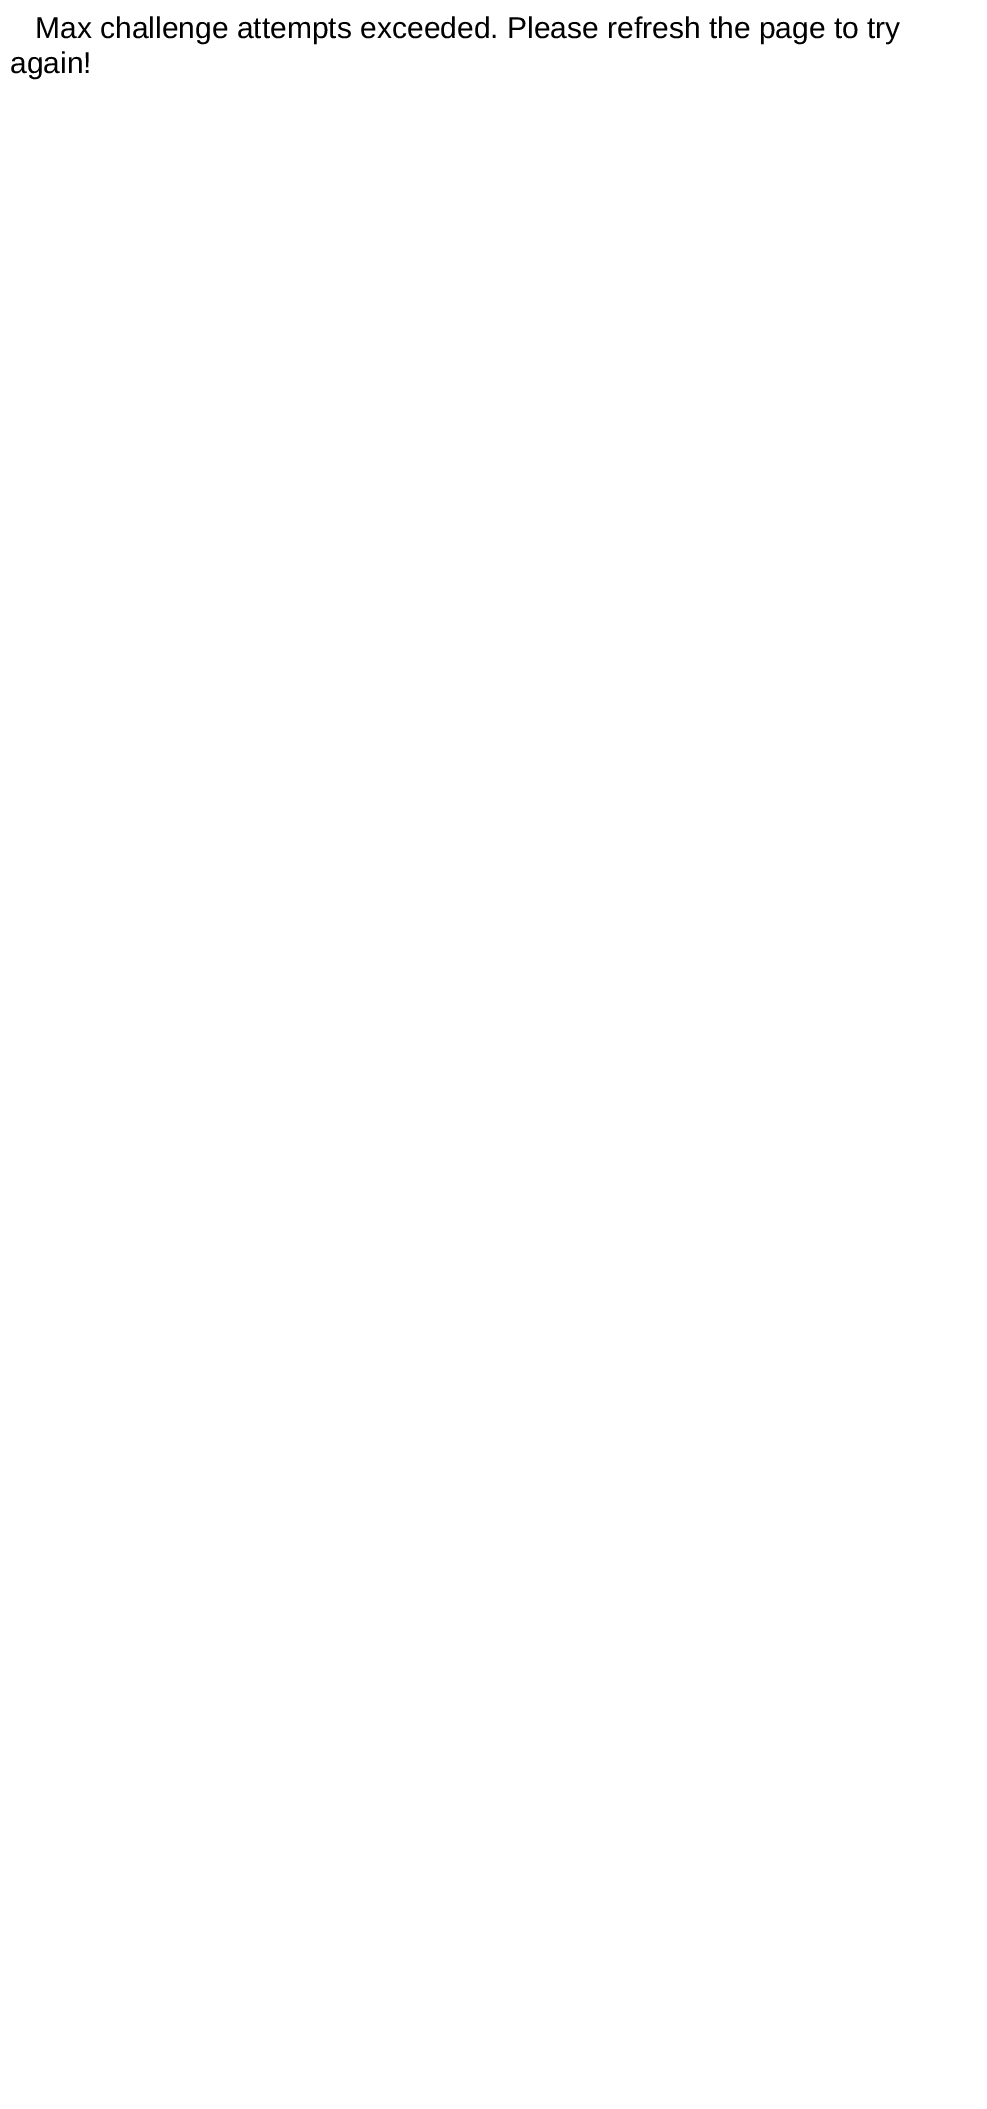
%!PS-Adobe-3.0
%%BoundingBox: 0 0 987 2109
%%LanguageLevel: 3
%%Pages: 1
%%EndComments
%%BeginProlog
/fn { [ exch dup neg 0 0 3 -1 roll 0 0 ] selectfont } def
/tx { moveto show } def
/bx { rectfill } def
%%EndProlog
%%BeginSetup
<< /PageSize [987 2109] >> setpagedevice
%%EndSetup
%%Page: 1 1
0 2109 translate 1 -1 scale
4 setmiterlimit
1 setgray
0 0 987 2109 bx
/LiberationSans-Regular 30 fn
0 setgray
(Max challenge attempts exceeded. Please refresh the page to try) 35 38 tx
(again!) 10 73 tx
showpage
%%EOF
